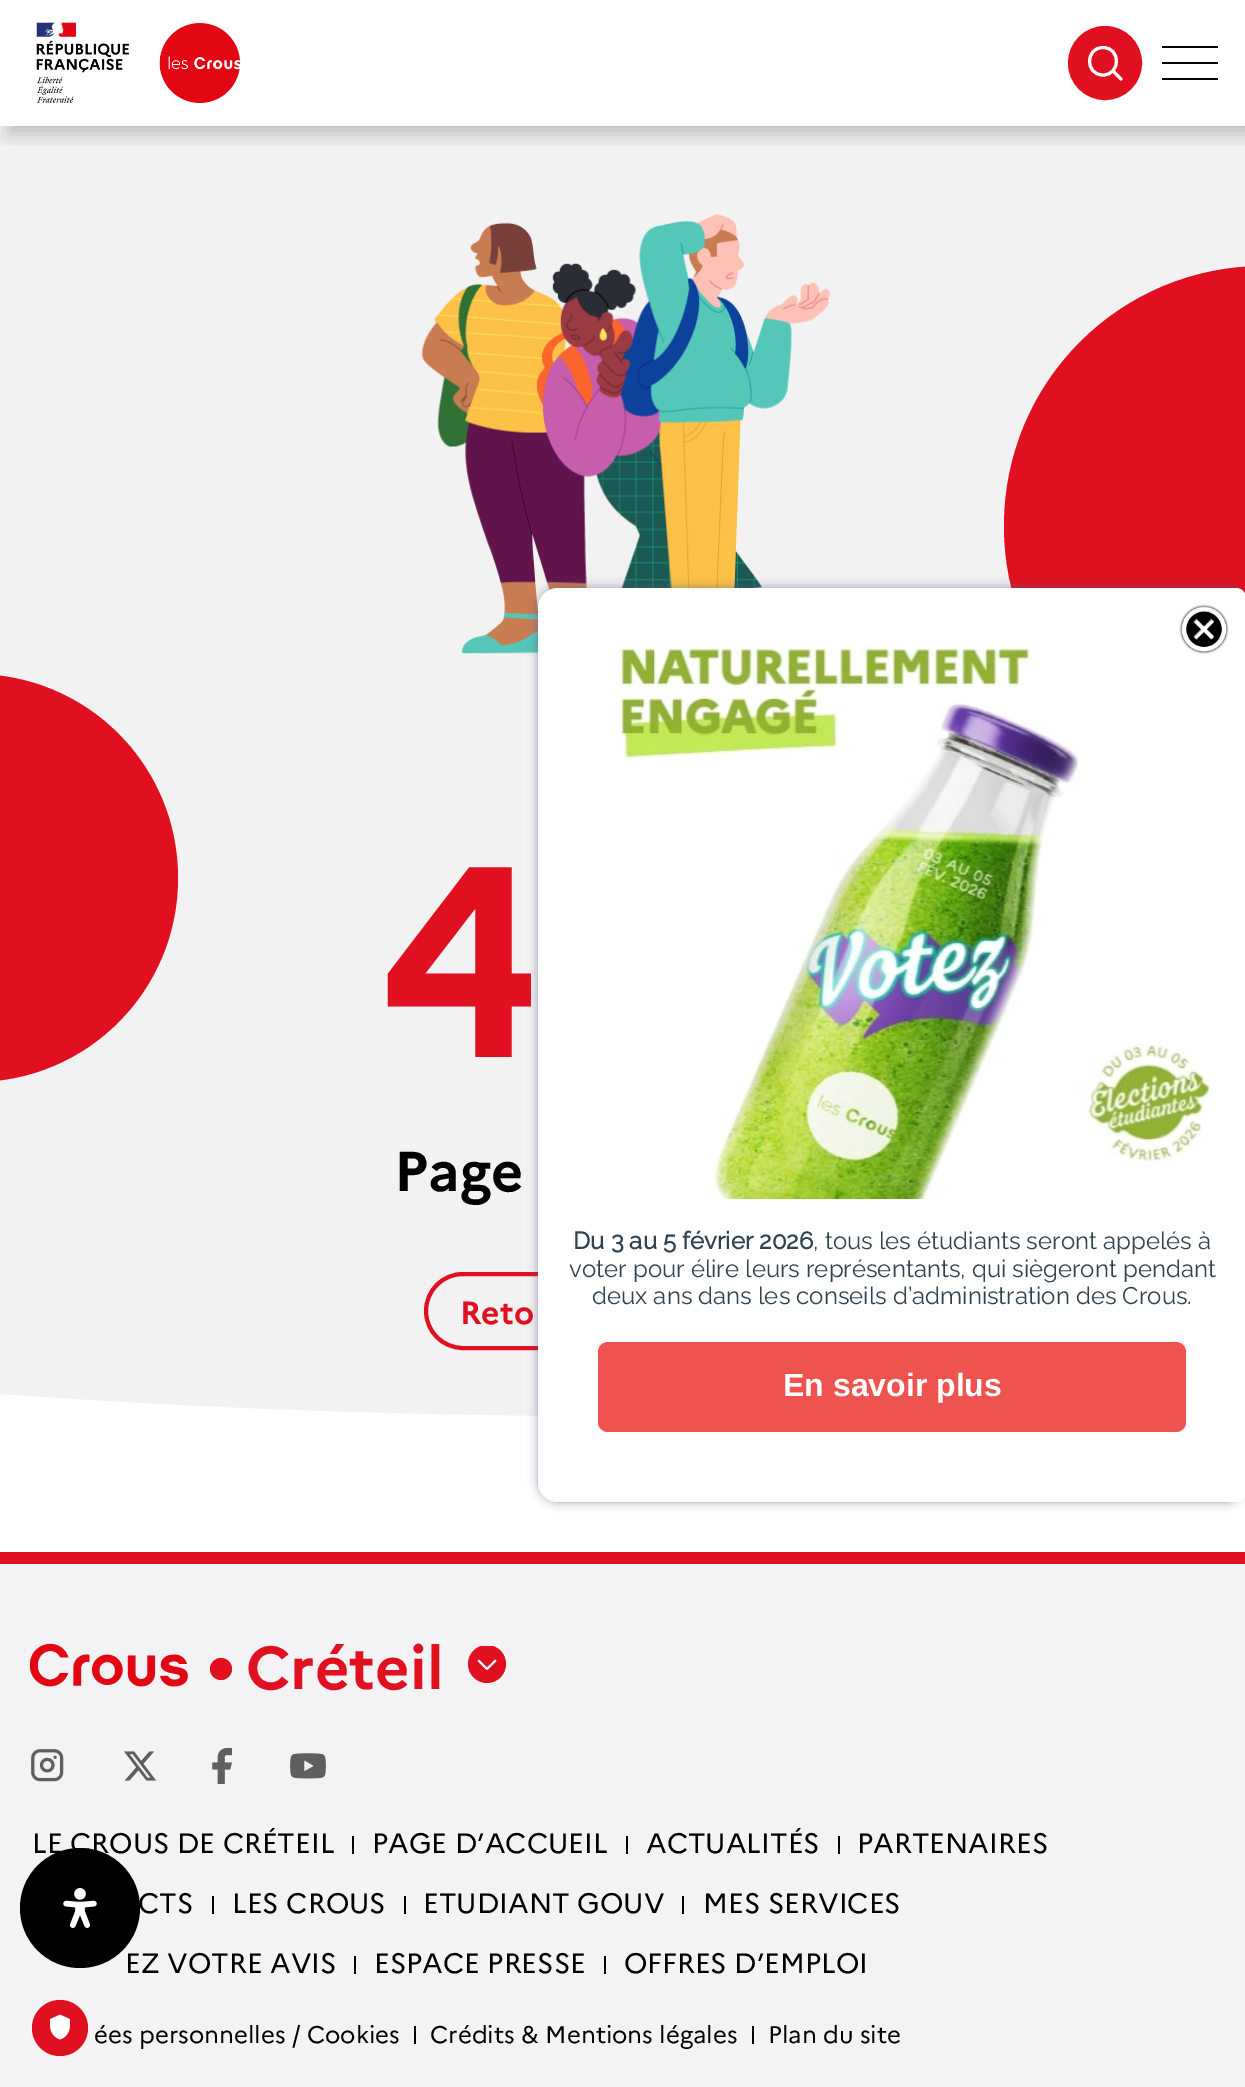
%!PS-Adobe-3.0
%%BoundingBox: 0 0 1245 2087
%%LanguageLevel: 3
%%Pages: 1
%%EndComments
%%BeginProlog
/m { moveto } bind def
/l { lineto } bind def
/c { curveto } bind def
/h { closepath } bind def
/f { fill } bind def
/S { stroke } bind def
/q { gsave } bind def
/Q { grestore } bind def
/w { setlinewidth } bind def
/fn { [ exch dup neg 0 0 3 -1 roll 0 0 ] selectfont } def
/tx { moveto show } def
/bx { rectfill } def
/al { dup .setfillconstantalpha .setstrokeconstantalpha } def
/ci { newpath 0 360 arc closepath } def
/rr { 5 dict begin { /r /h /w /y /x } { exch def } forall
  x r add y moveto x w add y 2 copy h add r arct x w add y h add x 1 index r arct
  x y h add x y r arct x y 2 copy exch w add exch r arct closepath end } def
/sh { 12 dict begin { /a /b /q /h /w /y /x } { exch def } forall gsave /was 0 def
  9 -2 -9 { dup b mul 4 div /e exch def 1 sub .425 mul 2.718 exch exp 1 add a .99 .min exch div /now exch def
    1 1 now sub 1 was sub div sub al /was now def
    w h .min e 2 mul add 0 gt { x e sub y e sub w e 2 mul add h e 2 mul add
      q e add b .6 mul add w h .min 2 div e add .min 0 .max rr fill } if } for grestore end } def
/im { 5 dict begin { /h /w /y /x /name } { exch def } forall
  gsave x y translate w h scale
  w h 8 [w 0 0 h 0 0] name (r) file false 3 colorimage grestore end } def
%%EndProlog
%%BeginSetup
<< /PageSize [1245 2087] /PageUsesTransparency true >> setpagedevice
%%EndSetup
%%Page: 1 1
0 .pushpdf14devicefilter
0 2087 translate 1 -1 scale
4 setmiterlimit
1 setgray
0 0 1245 2087 bx
q
0 126 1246 1290 rectclip
0.949 setgray
624 -472 m 2217 -472 3508 -49.5 3508 472 c 3508 993.5 2217 1416 624 1416 c -969 1416 -2260 993.5 -2260 472 c -2260 -49.5 -969 -472 624 -472 c h f
Q
q
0 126 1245 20 rectclip
0 setgray
8 8 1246 126 0 9 0.22 sh
Q
(image0.raw) 36 22 204 81 im
0.878 0.063 0.125 setrgbcolor
1105 63 35 ci q f Q
4 w
S
1 setgray
3 w
1 setlinecap
1 setlinejoin
1103 75 m 1121 75 1121 47.5 1103 47.5 c 1085 47.5 1085 75 1103 75 c h 1113 71 m 1121 79 l S
0 setgray
1162 62 56 2 bx
1162 46 56 2 bx
1162 78 56 2 bx
0.878 0.063 0.129 setrgbcolor
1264 786 m 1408 786 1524 670 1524 526 c 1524 382 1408 266 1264 266 c 1120 266 1004 382 1004 526 c 1004 670 1120 786 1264 786 c h f
-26 1082 m 87 1082 178 991 178 878 c 178 765 87 674 -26 674 c -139 674 -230 765 -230 878 c -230 991 -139 1082 -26 1082 c h f
(image1.raw) 421 214 410 440 im
/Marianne-Bold 272 fn
0.878 0.063 0.125 setrgbcolor
(4) 378 1057 tx
/Marianne-Bold 56 fn
0 setgray
(Page) 394 1191 tx
0.878 0.063 0.125 setrgbcolor
4 w
0 setlinecap
0 setlinejoin
426 1274 394 74 37 rr S
/Marianne-Bold 32 fn
(Reto) 460 1324 tx
0.337 0.337 0.514 setrgbcolor
538 588 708 914 20 5 0.6 sh
1 setgray
558 588 m 1236 588 l 1241.5 588 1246 592.5 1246 598 c 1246 1492 l 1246 1497.5 1241.5 1502 1236 1502 c 558 1502 l 547 1502 538 1493 538 1482 c 538 608 l 538 597 547 588 558 588 c h f
(image3.raw) 615 646 597 553 im
(image2.raw) 1179 604 50 50 im
/Raleway-Bold 24 fn
0.188 0.255 0.31 setrgbcolor
(Du 3 au 5 février 2026) 573 1249 tx
/Raleway-Thin 24 fn
(, tous les étudiants seront appelés à) 813 1249 tx
(voter pour élire leurs représentants, qui siègeront pendant) 569 1277 tx
(deux ans dans les conseils d’administration des Crous.) 592 1304 tx
0.937 0.325 0.314 setrgbcolor
598 1342 588 90 10 rr f
/LiberationSans-Bold 32 fn
1 setgray
(En savoir plus) 783 1396 tx
0.953 0.953 0.961 setrgbcolor
0 1564 1245 523 bx
0.878 0.063 0.125 setrgbcolor
0 1552 1245 12 bx
(image4.raw) 30 1643 158 44 im
221 1669 11 ci f
/Marianne-Bold 60 fn
(Créteil) 246 1689 tx
q
468 1646 38 38 rectclip
0.878 0.063 0.129 setrgbcolor
487 1664 19 ci f
Q
1 setgray
2 w
2 setlinecap
1 setlinejoin
495 1661 m 487 1669 l 479 1661 l S
(image5.raw) 31 1749 33 33 im
(image6.raw) 124 1751 33 30 im
(image7.raw) 212 1748 21 36 im
(image8.raw) 290 1753 36 26 im
/Marianne-Regular 28 fn
0 setgray
(LE CROUS DE CRÉTEIL) 32 1853 tx
352 1836 2 18 bx
(PAGE D’ACCUEIL) 372 1853 tx
626 1836 2 18 bx
(ACTUALITÉS) 646 1853 tx
838 1836 2 18 bx
(PARTENAIRES) 857 1853 tx
(CTS) 138 1913 tx
212 1896 2 18 bx
(LES CROUS) 232 1913 tx
404 1896 2 18 bx
(ETUDIANT GOUV) 423 1913 tx
682 1896 2 18 bx
(MES SERVICES) 703 1913 tx
(EZ VOTRE AVIS) 125 1973 tx
354 1956 2 18 bx
(ESPACE PRESSE) 374 1973 tx
604 1956 2 18 bx
(OFFRES D’EMPLOI) 624 1973 tx
/Marianne-Regular 24 fn
(ées personnelles / Cookies) 94 2043 tx
414 2026 2 18 bx
(Crédits & Mentions légales) 430 2043 tx
752 2026 2 18 bx
(Plan du site) 768 2043 tx
80 1908 60 ci f
(image9.raw) 63 1888 34 40 im
0.878 0.063 0.125 setrgbcolor
60 2028 28 ci f
(image10.raw) 50 2014 20 26 im
.poppdf14devicefilter showpage
%%EOF
